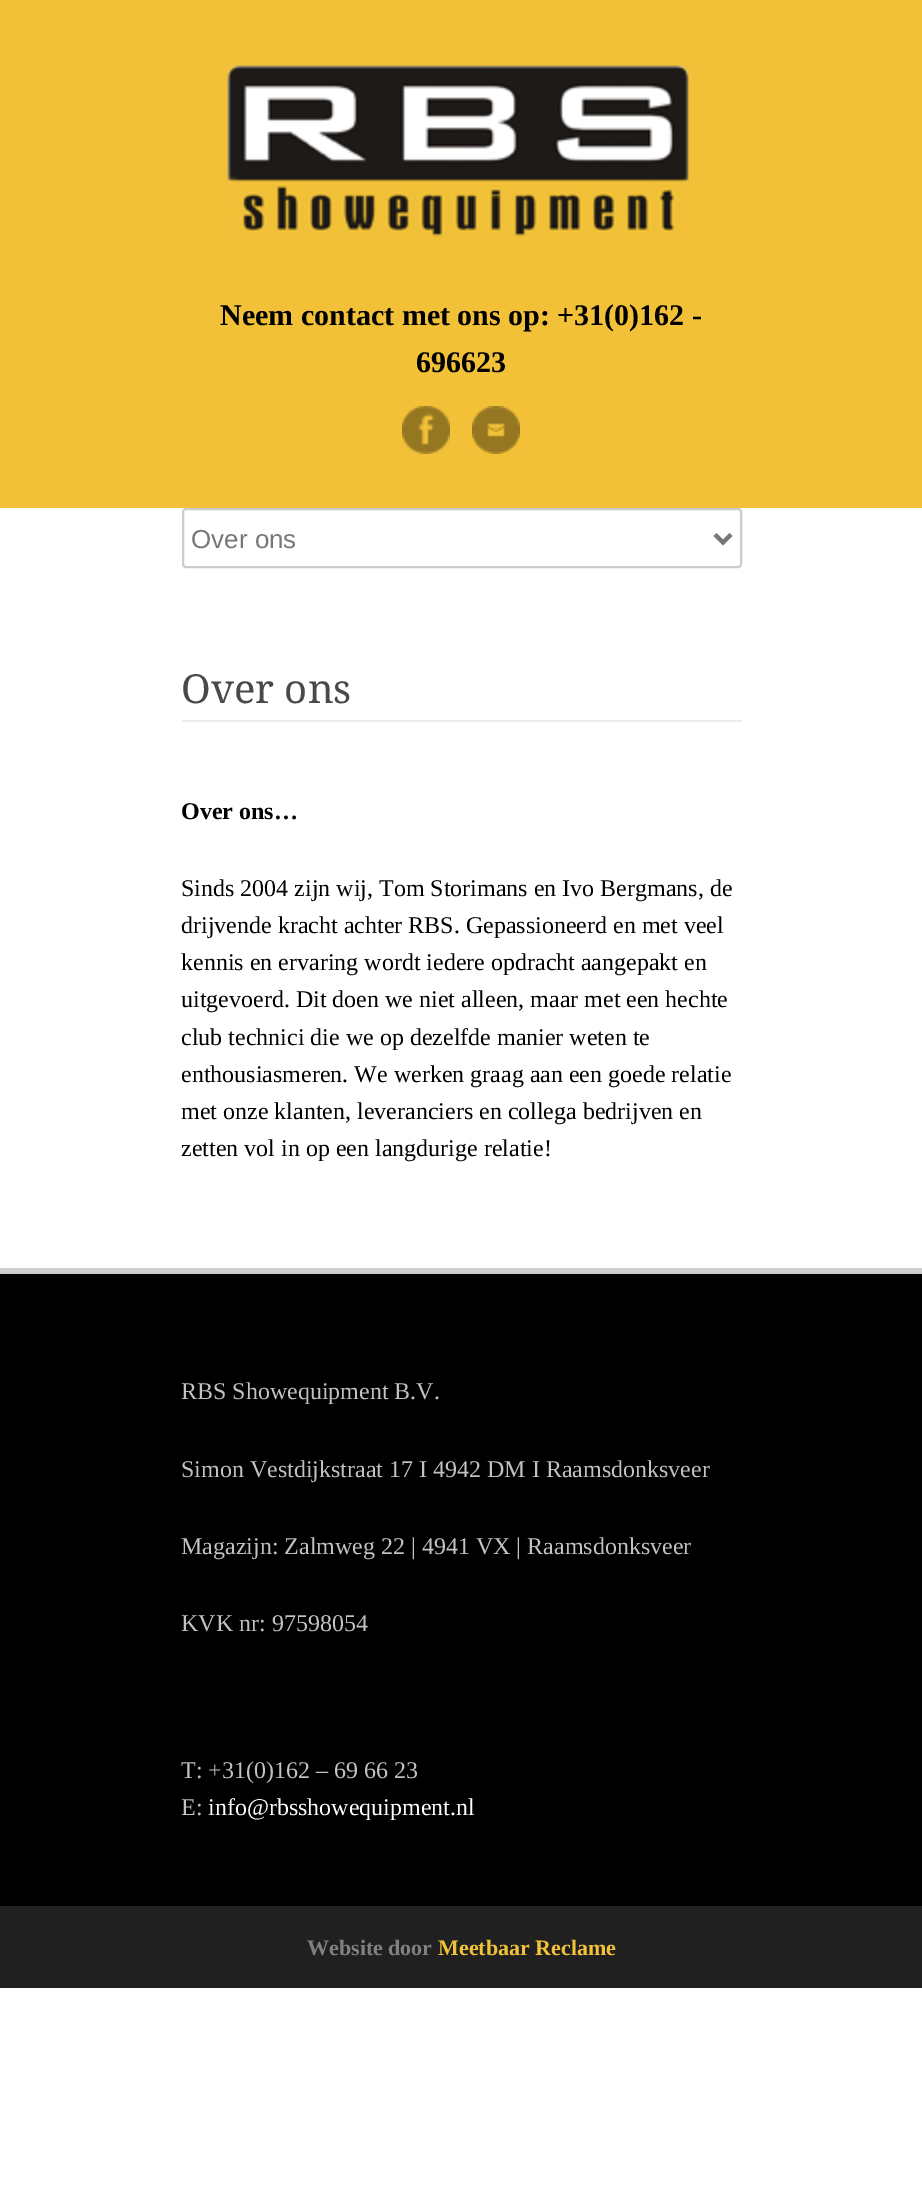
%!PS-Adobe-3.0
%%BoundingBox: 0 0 922 2202
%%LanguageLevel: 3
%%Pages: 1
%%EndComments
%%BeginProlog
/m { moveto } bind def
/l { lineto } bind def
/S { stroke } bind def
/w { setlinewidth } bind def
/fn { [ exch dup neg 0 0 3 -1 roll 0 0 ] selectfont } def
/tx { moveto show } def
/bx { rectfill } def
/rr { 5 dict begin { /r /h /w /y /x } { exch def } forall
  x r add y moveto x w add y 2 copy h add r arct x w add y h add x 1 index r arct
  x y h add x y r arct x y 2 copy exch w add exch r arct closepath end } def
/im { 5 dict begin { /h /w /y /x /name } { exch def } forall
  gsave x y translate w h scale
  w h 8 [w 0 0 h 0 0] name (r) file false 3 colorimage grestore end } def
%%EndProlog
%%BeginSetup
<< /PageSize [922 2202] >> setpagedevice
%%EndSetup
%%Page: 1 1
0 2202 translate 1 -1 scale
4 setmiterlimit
1 setgray
0 0 922 2202 bx
0.949 0.757 0.22 setrgbcolor
0 0 922 508 bx
(image0.raw) 227 65 462 172 im
/LiberationSerif-Bold 30 fn
0 setgray
(Neem contact met ons op: +31\(0\)162 -) 220 325 tx
(696623) 416 372 tx
(image1.raw) 402 406 48 48 im
(image2.raw) 472 406 48 48 im
0.8 setgray
2 w
183 509 558 58 3 rr S
0.467 setgray
4 w
715 534.5 m 723 542.5 l 731 534.5 l S
/LiberationSans-Regular 26 fn
(Over ons) 191 548 tx
0.925 setgray
182 720 560 2 bx
/DroidSerif-Regular 40 fn
0.286 setgray
(Over ons) 181 703 tx
/LiberationSerif-Bold 24 fn
0 setgray
(Over ons…) 181 819 tx
/LiberationSerif-Regular 24 fn
(Sinds 2004 zijn wij, Tom Storimans en Ivo Bergmans, de) 181 896 tx
(drijvende kracht achter RBS. Gepassioneerd en met veel) 181 933 tx
(kennis en ervaring wordt iedere opdracht aangepakt en) 181 970 tx
(uitgevoerd. Dit doen we niet alleen, maar met een hechte) 181 1007 tx
(club technici die we op dezelfde manier weten te) 181 1045 tx
(enthousiasmeren. We werken graag aan een goede relatie) 181 1082 tx
(met onze klanten, leveranciers en collega bedrijven en) 181 1119 tx
(zetten vol in op een langdurige relatie!) 181 1156 tx
0 1274 922 632 bx
0.812 setgray
0 1268 922 6 bx
0.761 setgray
(RBS Showequipment B.V.) 181 1399 tx
(Simon Vestdijkstraat 17 I 4942 DM I Raamsdonksveer) 181 1477 tx
(Magazijn: Zalmweg 22 | 4941 VX | Raamsdonksveer) 181 1554 tx
(KVK nr: 97598054) 181 1631 tx
(T: +31\(0\)162 – 69 66 23) 181 1778 tx
(E:) 181 1815 tx
1 setgray
(info@rbsshowequipment.nl) 208 1815 tx
0.125 setgray
0 1906 922 82 bx
/LiberationSerif-Bold 22 fn
0.502 setgray
(Website door) 307 1955 tx
0.949 0.757 0.22 setrgbcolor
(Meetbaar Reclame) 438 1955 tx
showpage
%%EOF
